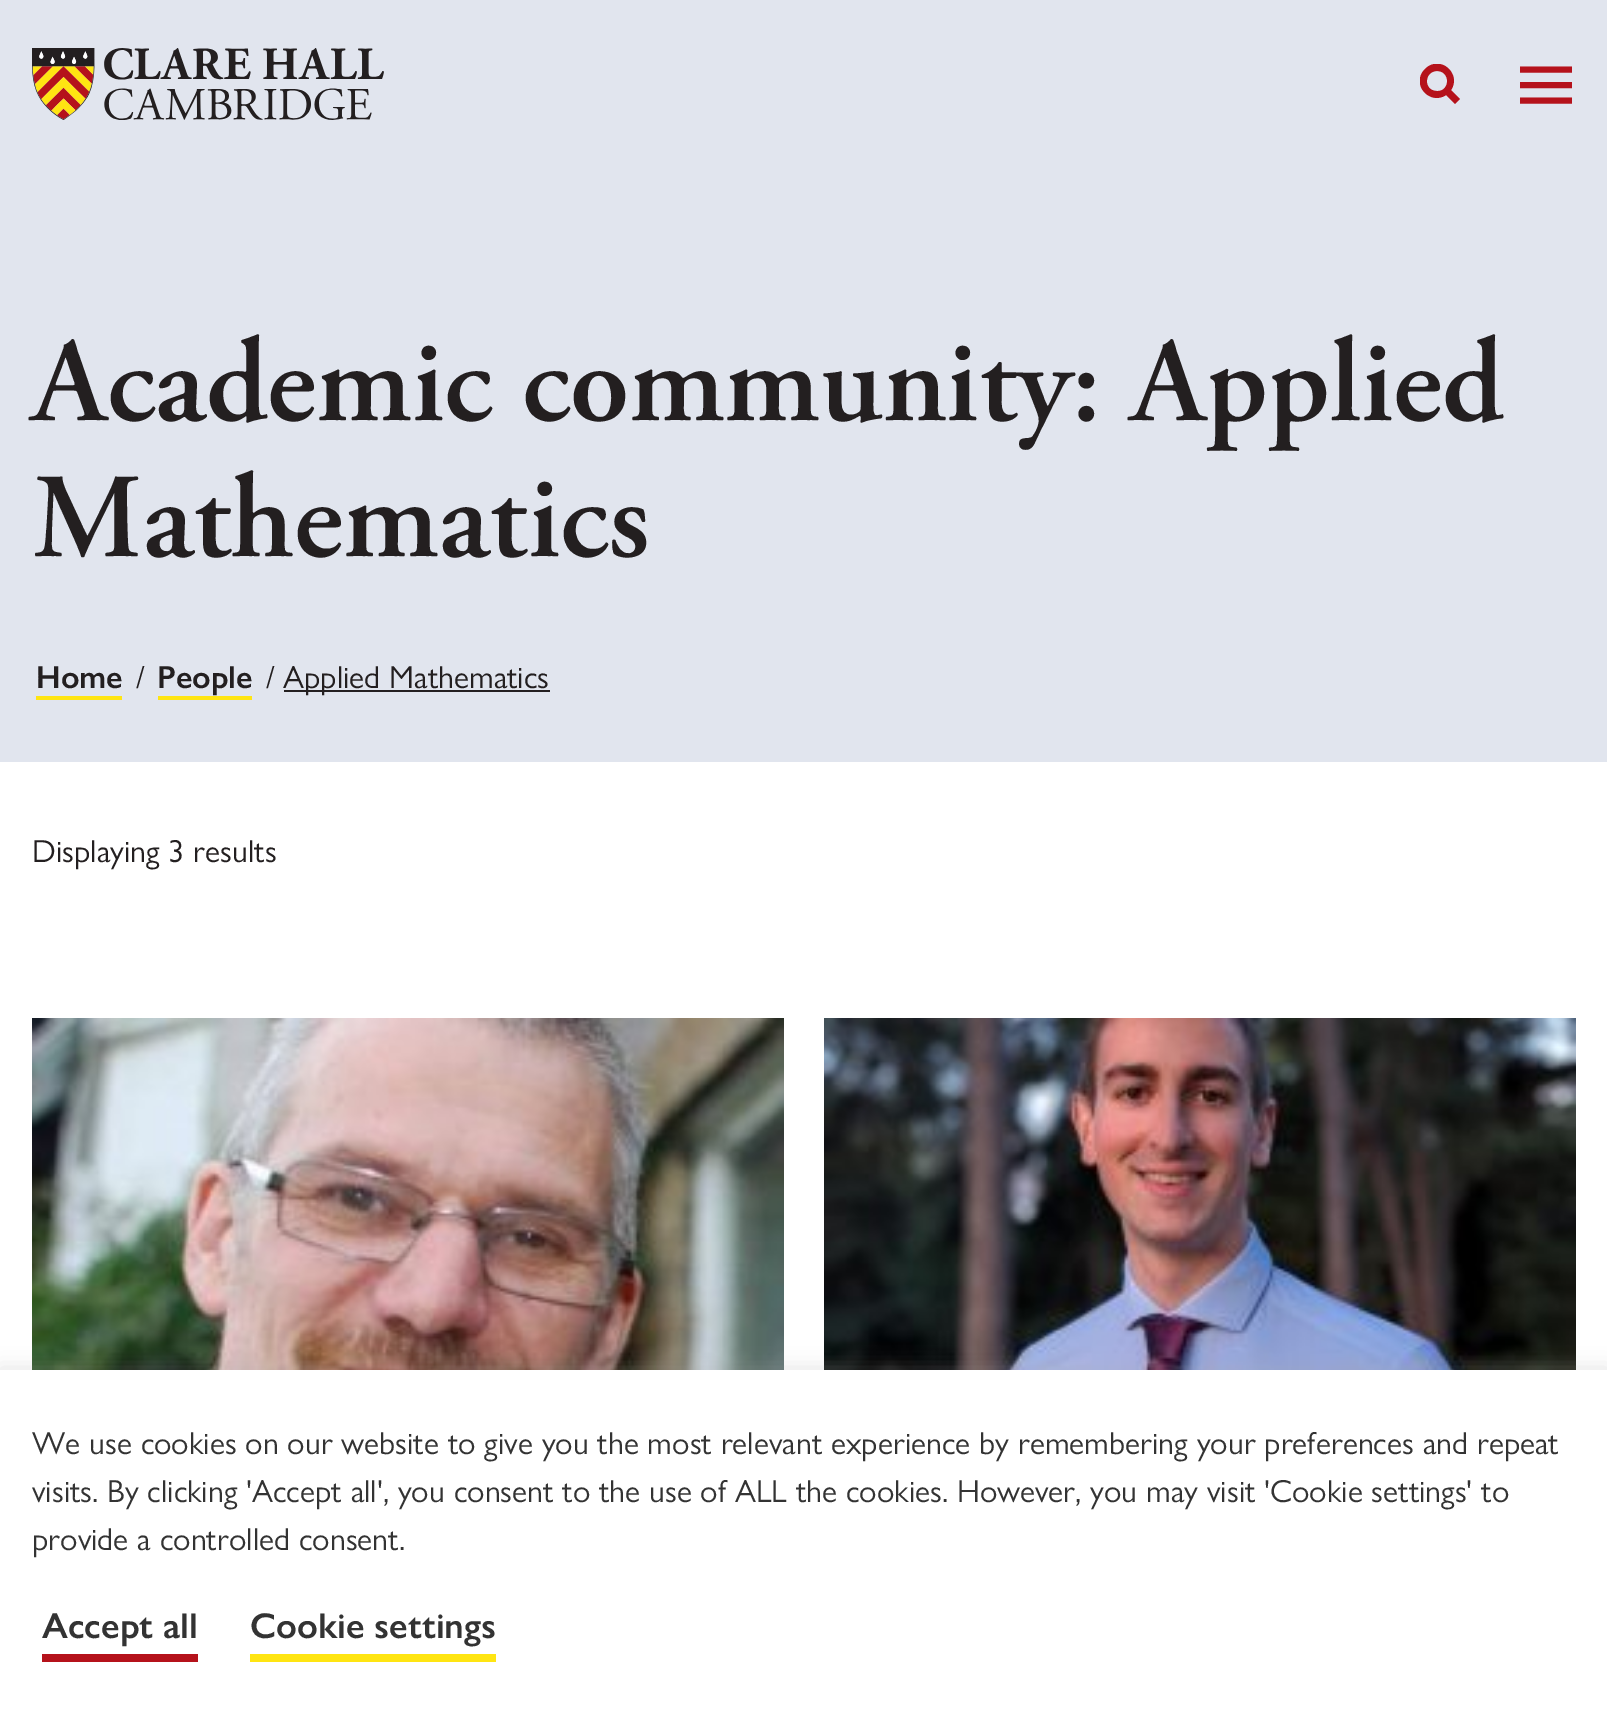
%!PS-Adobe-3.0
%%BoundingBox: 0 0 1607 1710
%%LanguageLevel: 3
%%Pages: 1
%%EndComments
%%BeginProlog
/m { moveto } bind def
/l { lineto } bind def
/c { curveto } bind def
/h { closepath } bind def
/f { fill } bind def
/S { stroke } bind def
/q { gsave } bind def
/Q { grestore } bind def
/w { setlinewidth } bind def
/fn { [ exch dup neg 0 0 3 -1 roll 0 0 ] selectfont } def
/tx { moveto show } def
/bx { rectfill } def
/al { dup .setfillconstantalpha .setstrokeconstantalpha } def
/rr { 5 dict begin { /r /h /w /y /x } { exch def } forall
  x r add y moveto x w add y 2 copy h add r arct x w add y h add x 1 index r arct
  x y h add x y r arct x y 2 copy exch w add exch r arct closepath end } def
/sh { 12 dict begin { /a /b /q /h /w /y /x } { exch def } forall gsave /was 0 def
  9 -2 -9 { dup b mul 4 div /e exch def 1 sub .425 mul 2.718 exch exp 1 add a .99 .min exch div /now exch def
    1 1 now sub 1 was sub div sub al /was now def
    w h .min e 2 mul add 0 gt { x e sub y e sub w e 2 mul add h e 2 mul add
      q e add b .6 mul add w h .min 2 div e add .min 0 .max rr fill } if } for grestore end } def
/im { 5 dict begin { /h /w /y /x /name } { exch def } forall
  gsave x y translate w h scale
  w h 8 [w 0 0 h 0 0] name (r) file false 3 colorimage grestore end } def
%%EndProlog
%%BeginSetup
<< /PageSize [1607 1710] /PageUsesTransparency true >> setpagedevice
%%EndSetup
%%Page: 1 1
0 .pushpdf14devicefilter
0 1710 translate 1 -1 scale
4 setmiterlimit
1 setgray
0 0 1607 1710 bx
0.882 0.898 0.933 setrgbcolor
0 0 1607 762 bx
(image0.raw) 32 48 352 72 im
q
1420 64 40 40 rectclip
0.71 0.071 0.106 setrgbcolor
1451 90 m 1462 74 1440 54 1425 69 c 1410 84 1430 106 1446 95 c 1455 104 l 1460 99 l h 1437 71 m 1451 71 1450 92 1437 91 c 1423 91 1424 71 1437 71 c h f
Q
0.71 0.071 0.106 setrgbcolor
6 w
1520 69.5 m 1572 69.5 l 1520 85 m 1572 85 l 1520 100.5 m 1572 100.5 l S
/AdobeGaramond-SemiBold 120 fn
0.137 0.122 0.125 setrgbcolor
(Academic community: Applied) 32 420 tx
(Mathematics) 32 556 tx
/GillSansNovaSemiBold-SemiBold 32 fn
(Home) 36 688 tx
1 0.898 0.071 setrgbcolor
36 696 86 4 bx
/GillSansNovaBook-Regular 32 fn
0.137 0.122 0.125 setrgbcolor
(/) 136 688 tx
/GillSansNovaSemiBold-SemiBold 32 fn
(People) 157 688 tx
1 0.898 0.071 setrgbcolor
158 696 94 4 bx
/GillSansNovaBook-Regular 32 fn
0.137 0.122 0.125 setrgbcolor
(/) 266 688 tx
284 690 266 2 bx
(Applied Mathematics) 283 688 tx
(Displaying 3 results) 32 862 tx
(image1.raw) 32 1018 752 352 im
(image2.raw) 824 1018 752 352 im
0.675 0.671 0.671 setrgbcolor
0 1368 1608 340 0 10 0.3 sh
1 setgray
0 1370 1607 340 bx
0.2 setgray
(We use cookies on our website to give you the most relevant experience by remembering your preferences and repeat) 32 1454 tx
(visits. By clicking 'Accept all', you consent to the use of ALL the cookies. However, you may visit 'Cookie settings' to) 32 1502 tx
(provide a controlled consent.) 32 1550 tx
0.71 0.071 0.106 setrgbcolor
42 1654 156 8 bx
/GillSansNovaSemiBold-SemiBold 36 fn
0.2 setgray
(Accept all) 42 1638 tx
1 0.898 0.071 setrgbcolor
250 1654 246 8 bx
0.2 setgray
(Cookie settings) 250 1638 tx
.poppdf14devicefilter showpage
%%EOF
